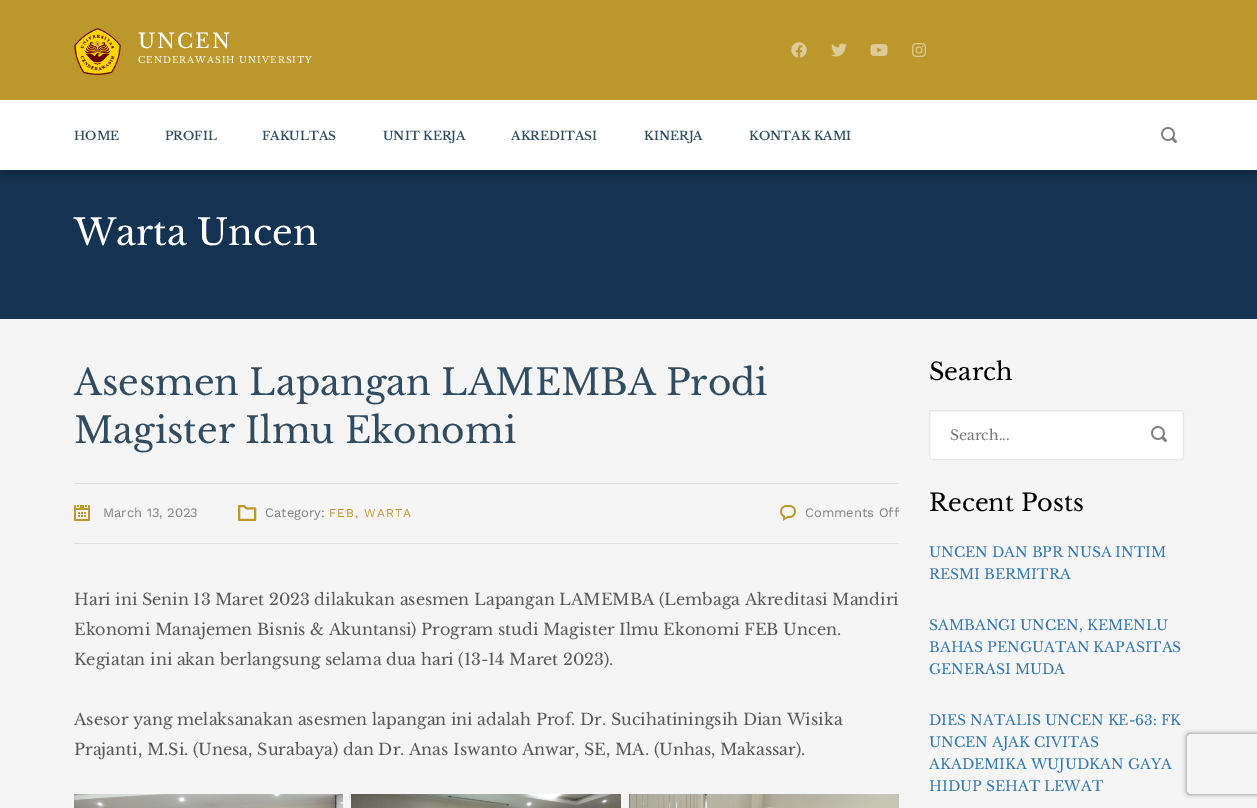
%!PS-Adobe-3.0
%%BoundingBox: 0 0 1257 808
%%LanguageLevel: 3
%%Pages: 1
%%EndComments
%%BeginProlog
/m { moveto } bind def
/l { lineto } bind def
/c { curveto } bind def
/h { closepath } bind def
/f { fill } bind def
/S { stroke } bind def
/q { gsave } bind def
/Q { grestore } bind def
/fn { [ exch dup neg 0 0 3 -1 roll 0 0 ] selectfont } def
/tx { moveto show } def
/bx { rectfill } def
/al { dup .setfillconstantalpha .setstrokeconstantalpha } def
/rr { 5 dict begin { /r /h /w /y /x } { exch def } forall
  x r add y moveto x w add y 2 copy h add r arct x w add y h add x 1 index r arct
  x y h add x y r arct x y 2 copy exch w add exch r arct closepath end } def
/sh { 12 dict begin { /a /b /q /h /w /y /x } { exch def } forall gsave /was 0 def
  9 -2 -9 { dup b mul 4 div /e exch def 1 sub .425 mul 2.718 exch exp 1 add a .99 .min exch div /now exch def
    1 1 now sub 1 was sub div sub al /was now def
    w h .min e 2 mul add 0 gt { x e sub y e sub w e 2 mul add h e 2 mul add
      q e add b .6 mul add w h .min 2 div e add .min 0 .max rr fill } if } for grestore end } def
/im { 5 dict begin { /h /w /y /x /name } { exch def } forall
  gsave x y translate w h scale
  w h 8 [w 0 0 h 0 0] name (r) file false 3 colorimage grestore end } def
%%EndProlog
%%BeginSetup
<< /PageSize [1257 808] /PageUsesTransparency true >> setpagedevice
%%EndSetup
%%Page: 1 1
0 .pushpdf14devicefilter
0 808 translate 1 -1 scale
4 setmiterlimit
0.961 setgray
0 0 1257 808 bx
0.078 0.196 0.318 setrgbcolor
0 170 1257 149 bx
0 setgray
0 5 1257 170 0 2.5 0.2 sh
1 setgray
0 100 1257 70 bx
0.737 0.592 0.173 setrgbcolor
0 0 1257 100 bx
(image0.raw) 74 28 47 47 im
/LibreBaskerville-Regular 20 fn
1 setgray
138 48 m 2 0 (UNCEN) ashow
/LibreBaskerville-Regular 9 fn
138 63 m 1 0 (CENDERAWASIH UNIVERSITY) ashow
(image1.raw) 791 42 16 16 im
(image2.raw) 831 43 16 14 im
(image3.raw) 870 44 18 12 im
(image4.raw) 912 43 14 14 im
/LibreBaskerville-SemiBold 12 fn
0.192 0.298 0.376 setrgbcolor
(HOME) 74 140 tx
(PROFIL) 165 140 tx
(FAKULTAS) 262 140 tx
(UNIT KERJA) 383 140 tx
(AKREDITASI) 511 140 tx
(KINERJA) 644 140 tx
(KONTAK KAMI) 749 140 tx
(image5.raw) 1161 127 16 16 im
/LibreBaskerville-Regular 36 fn
1 setgray
(Warta Uncen) 74 245 tx
0.192 0.298 0.376 setrgbcolor
(Asesmen Lapangan LAMEMBA Prodi) 74 395 tx
(Magister Ilmu Ekonomi) 74 443 tx
0.875 setgray
74 483 825 1 bx
74 543 825 1 bx
(image6.raw) 74 505 16 16 im
/WorkSans-Regular 13 fn
0.502 setgray
(March 13, 2023) 103 517 tx
(image7.raw) 238 505 19 16 im
(Category:) 265 517 tx
/WorkSans-Regular 12 fn
0.737 0.592 0.173 setrgbcolor
329 517 m 1 0 (FEB, WARTA) ashow
(image8.raw) 780 505 16 16 im
/WorkSans-Regular 13 fn
0.502 setgray
(Comments Off) 805 517 tx
/LibreBaskerville-Regular 16 fn
0.349 setgray
(Hari ini Senin 13 Maret 2023 dilakukan asesmen Lapangan LAMEMBA \(Lembaga Akreditasi Mandiri) 74 605 tx
(Ekonomi Manajemen Bisnis & Akuntansi\) Program studi Magister Ilmu Ekonomi FEB Uncen.) 74 635 tx
(Kegiatan ini akan berlangsung selama dua hari \(13-14 Maret 2023\).) 74 665 tx
(Asesor yang melaksanakan asesmen lapangan ini adalah Prof. Dr. Sucihatiningsih Dian Wisika) 74 725 tx
(Prajanti, M.Si. \(Unesa, Surabaya\) dan Dr. Anas Iswanto Anwar, SE, MA. \(Unhas, Makassar\).) 74 755 tx
(image9.raw) 74 794 269 14 im
(image10.raw) 351 794 270 14 im
(image11.raw) 629 794 270 14 im
/LibreBaskerville-Regular 24 fn
0 setgray
(Search) 929 380 tx
1 setgray
929.5 410.5 254 49 2.5 rr q f Q
0.902 setgray
S
/LibreBaskerville-Regular 14 fn
0.459 setgray
(Search...) 950 440 tx
(image5.raw) 1151 426 16 16 im
/LibreBaskerville-Regular 24 fn
0 setgray
(Recent Posts) 929 511 tx
/LibreBaskerville-Regular 14 fn
0.196 0.467 0.682 setrgbcolor
(UNCEN DAN BPR NUSA INTIM) 929 557 tx
(RESMI BERMITRA) 929 579 tx
(SAMBANGI UNCEN, KEMENLU) 929 630 tx
(BAHAS PENGUATAN KAPASITAS) 929 652 tx
(GENERASI MUDA) 929 674 tx
(DIES NATALIS UNCEN KE-63: FK) 929 725 tx
(UNCEN AJAK CIVITAS) 929 747 tx
(AKADEMIKA WUJUDKAN GAYA) 929 769 tx
(HIDUP SEHAT LEWAT) 929 791 tx
q
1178 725 m 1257 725 l 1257 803 l 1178 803 l h 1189 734 m 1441 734 l 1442 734 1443 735 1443 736 c 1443 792 l 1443 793 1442 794 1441 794 c 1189 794 l 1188 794 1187 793 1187 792 c 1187 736 l 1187 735 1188 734 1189 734 c h eoclip newpath
0.502 setgray
1187 734 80 60 2 2.5 1 sh
Q
.poppdf14devicefilter showpage
%%EOF
